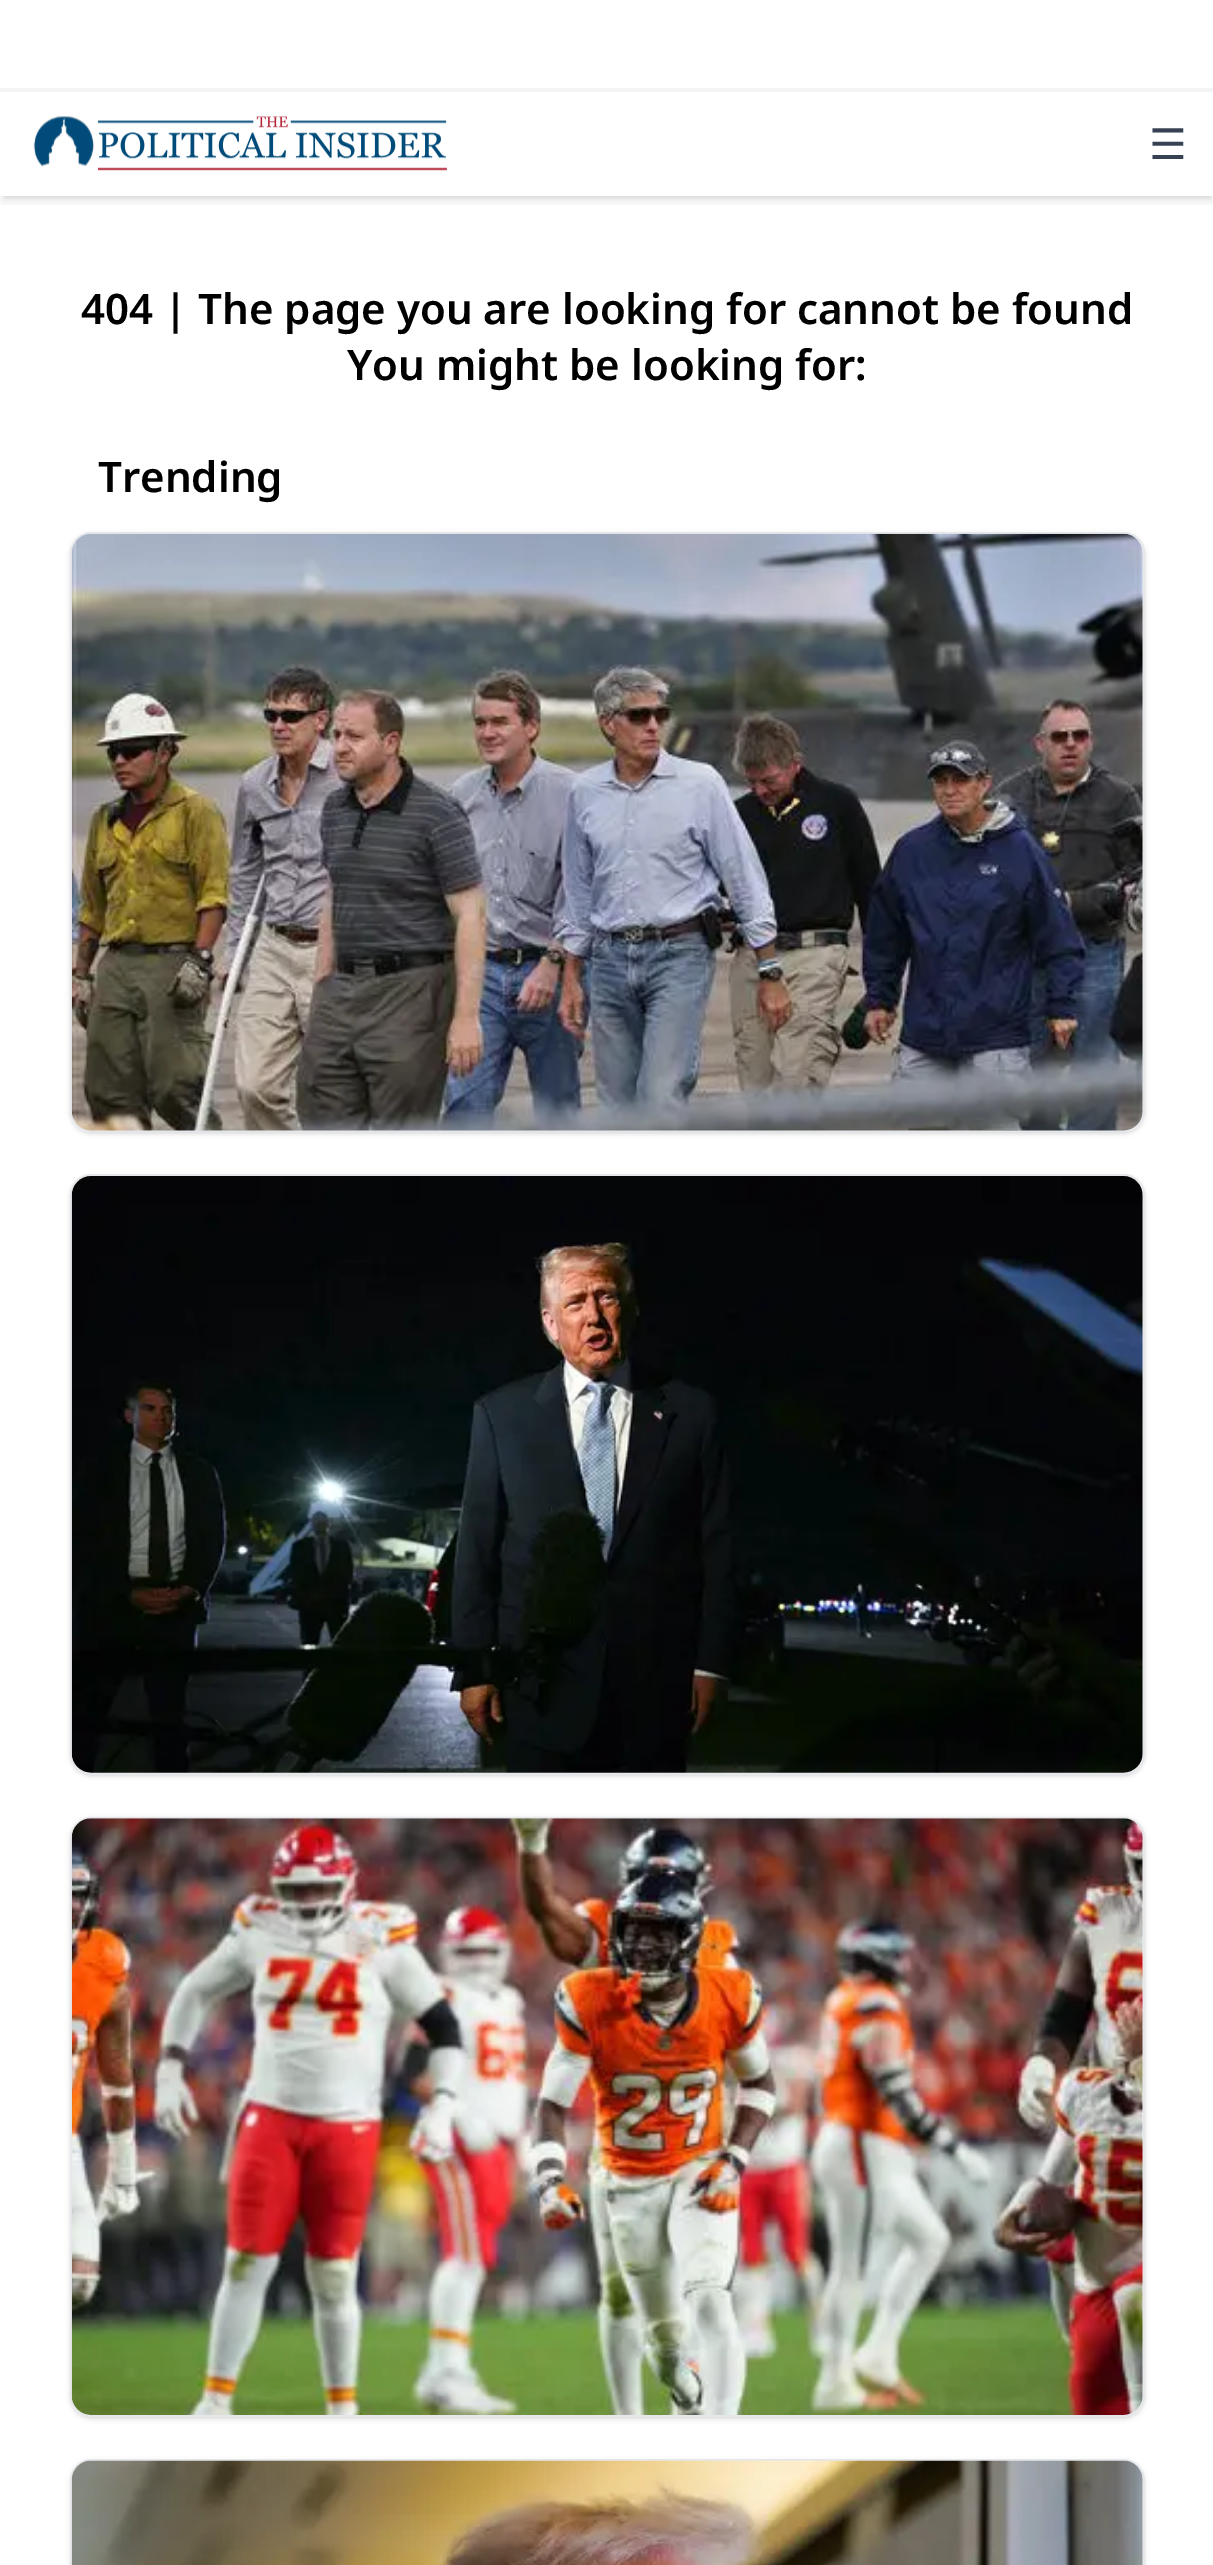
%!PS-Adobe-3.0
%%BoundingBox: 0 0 1213 2565
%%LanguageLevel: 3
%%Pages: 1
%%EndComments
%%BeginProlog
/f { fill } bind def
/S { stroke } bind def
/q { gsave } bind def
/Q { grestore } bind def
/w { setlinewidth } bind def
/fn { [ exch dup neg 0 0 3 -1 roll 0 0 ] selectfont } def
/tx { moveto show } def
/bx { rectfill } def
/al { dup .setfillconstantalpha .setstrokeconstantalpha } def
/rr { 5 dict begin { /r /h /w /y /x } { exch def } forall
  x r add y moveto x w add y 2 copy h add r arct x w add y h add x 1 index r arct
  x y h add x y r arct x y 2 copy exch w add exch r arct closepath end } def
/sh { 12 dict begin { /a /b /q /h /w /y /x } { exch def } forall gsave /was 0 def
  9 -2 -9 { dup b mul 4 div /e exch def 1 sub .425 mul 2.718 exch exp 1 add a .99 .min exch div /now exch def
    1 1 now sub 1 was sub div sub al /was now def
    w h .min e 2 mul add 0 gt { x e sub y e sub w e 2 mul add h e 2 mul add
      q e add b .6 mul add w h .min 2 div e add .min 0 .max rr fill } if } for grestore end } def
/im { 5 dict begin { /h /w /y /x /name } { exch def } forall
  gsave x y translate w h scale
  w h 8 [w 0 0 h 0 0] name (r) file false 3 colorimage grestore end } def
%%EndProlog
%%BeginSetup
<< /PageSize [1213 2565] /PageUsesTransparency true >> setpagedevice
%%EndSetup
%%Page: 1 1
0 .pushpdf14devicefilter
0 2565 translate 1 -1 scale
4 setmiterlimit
1 setgray
0 0 1213 2565 bx
q
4 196 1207 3 rectclip
0 setgray
4 7 1207 189 0 3.5 0.1 sh
Q
q
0 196 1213 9 rectclip
0 setgray
2 9 1211 192 0 5 0.1 sh
Q
0.953 0.957 0.965 setrgbcolor
0 88 1213 4 bx
(image0.raw) 33 116 414 55 im
/DejaVuSans-Regular 42 fn
0.212 0.255 0.325 setrgbcolor
(☰) 1149 159 tx
/NotoSans-SemiBold 42 fn
0 setgray
(404 | The page you are looking for cannot be found) 81 324 tx
(You might be looking for:) 347 380 tx
(Trending) 98 492 tx
72 536 1071 596 19 2 0.1 sh
70 534 1075 600 21 2.5 0.1 sh
1 setgray
71 533 1073 598 20 rr q f Q
0.898 0.906 0.922 setrgbcolor
2 w
S
(image1.raw) 71 533 1072 598 im
0 setgray
72 1178 1071 597 19 2 0.1 sh
70 1176 1075 600 21 2.5 0.1 sh
1 setgray
71 1175 1073 599 20 rr q f Q
0.898 0.906 0.922 setrgbcolor
S
(image2.raw) 71 1176 1072 597 im
0 setgray
72 1820 1071 597 19 2 0.1 sh
70 1818 1075 601 21 2.5 0.1 sh
1 setgray
71 1818 1073 598 20 rr q f Q
0.898 0.906 0.922 setrgbcolor
S
(image3.raw) 71 1818 1072 597 im
0 setgray
70 2461 1075 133 21 2.5 0.1 sh
1 setgray
71 2460 1073 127 20 rr q f Q
0.898 0.906 0.922 setrgbcolor
S
(image4.raw) 71 2460 1072 105 im
.poppdf14devicefilter showpage
%%EOF
